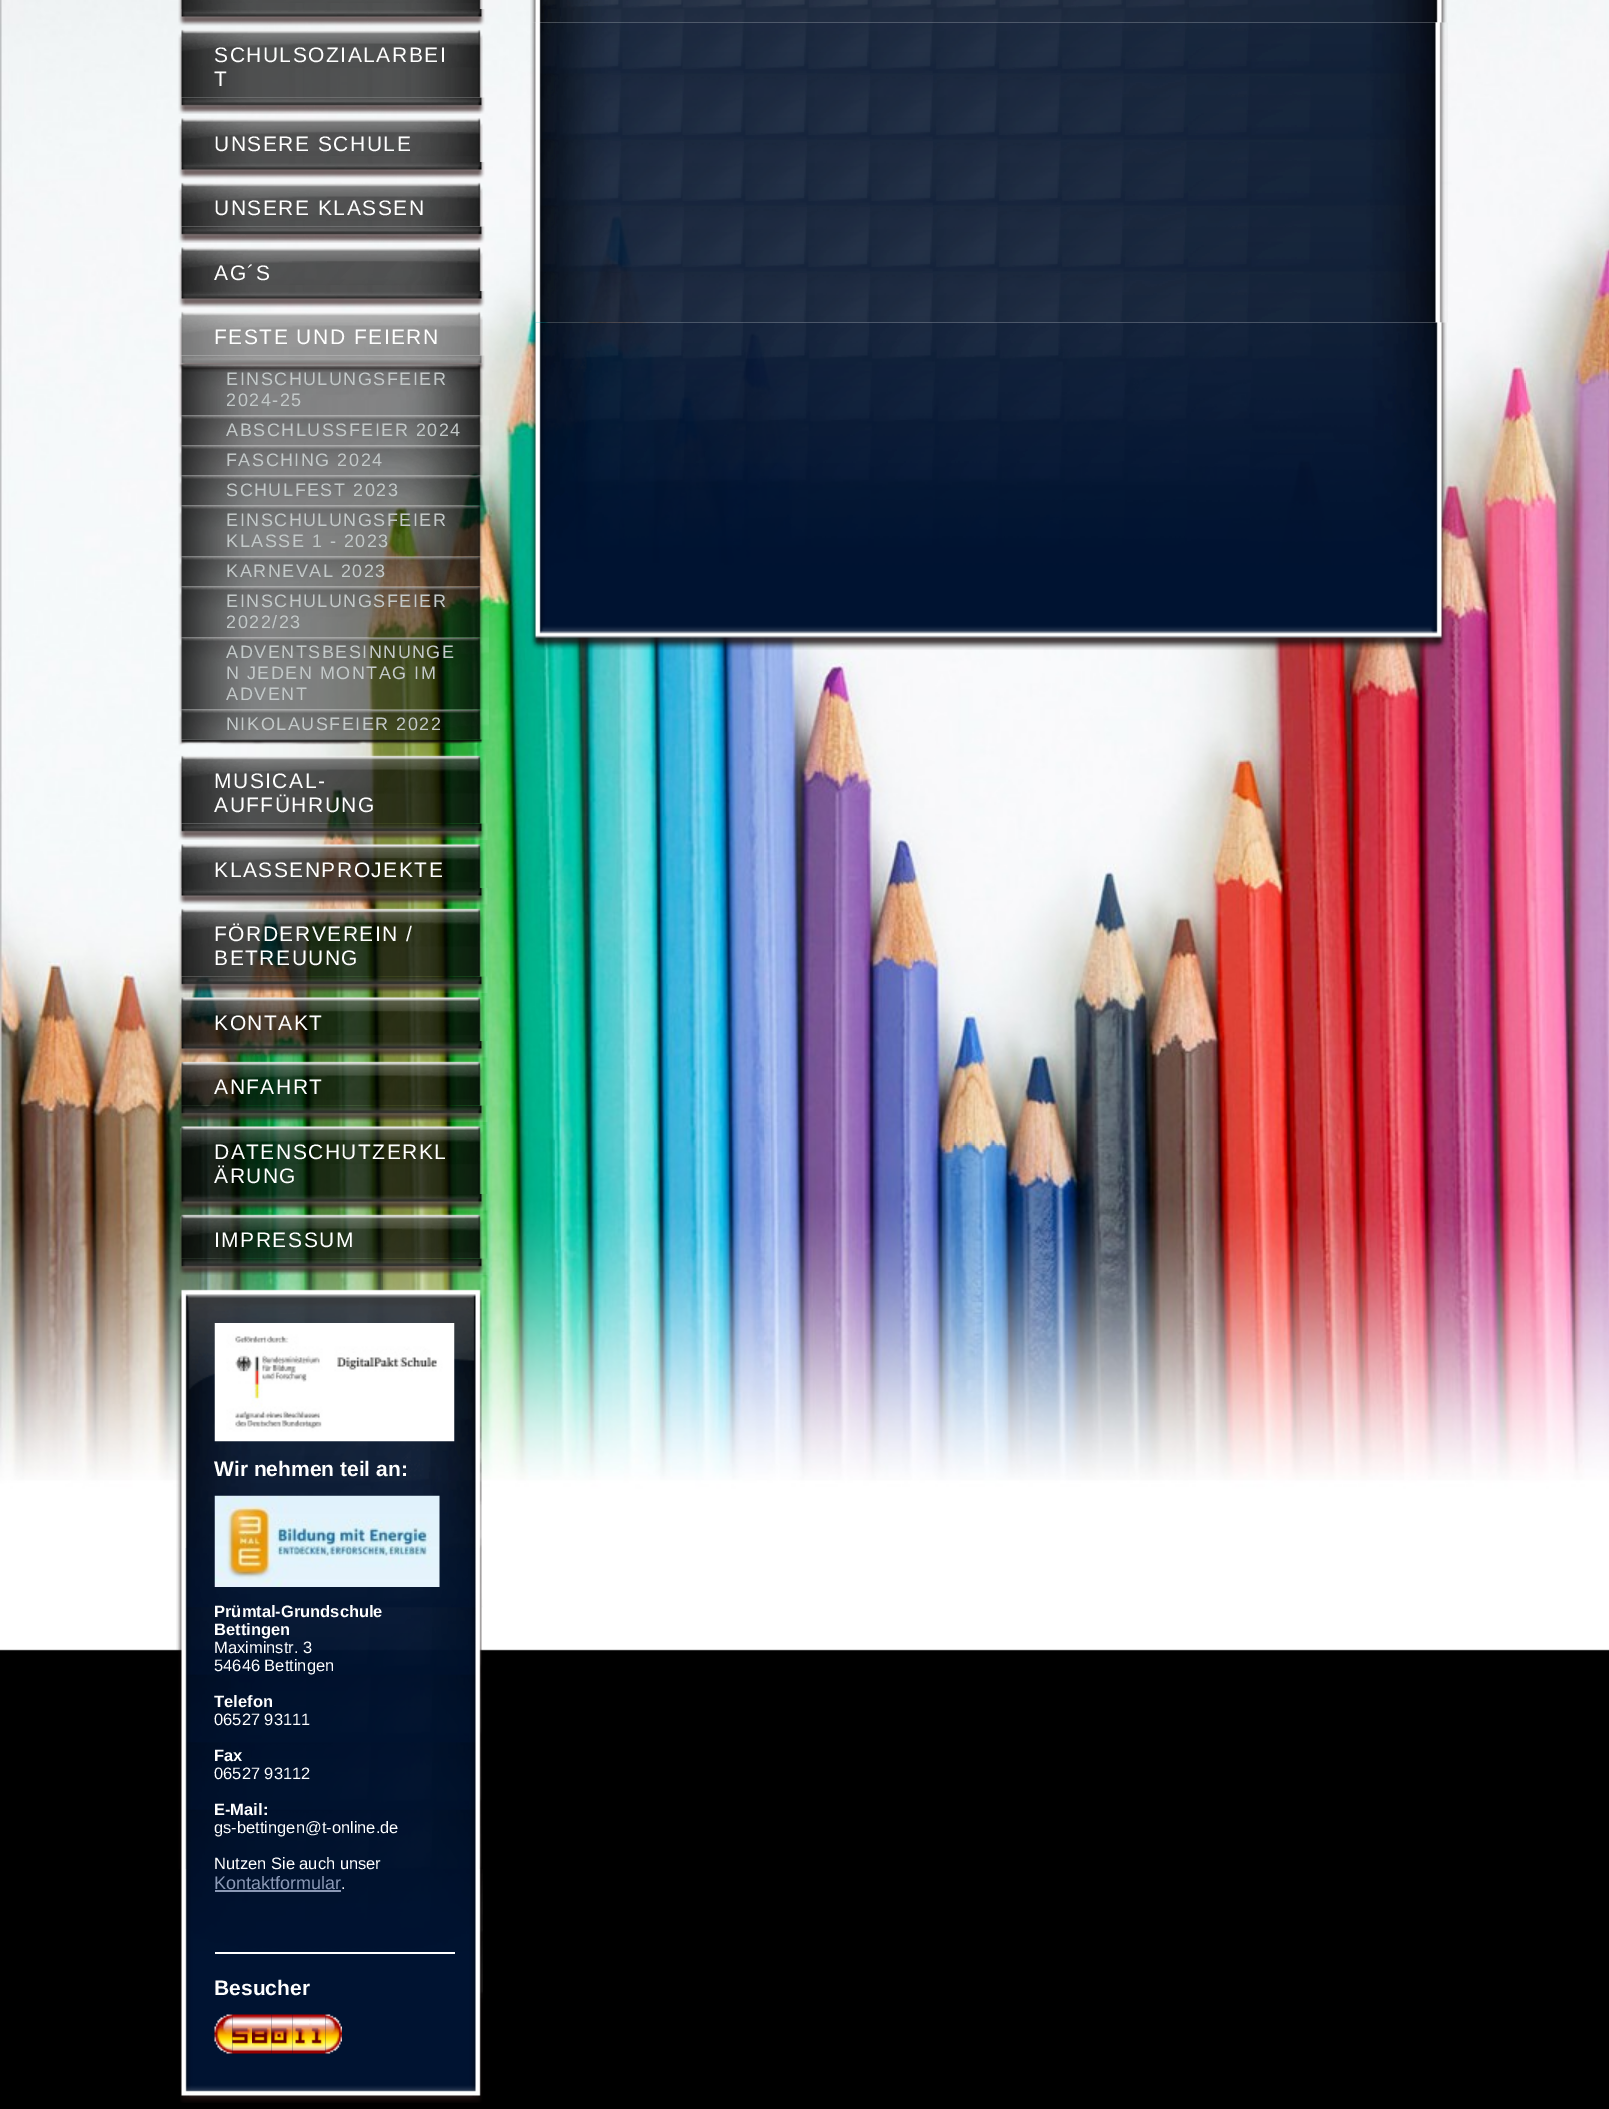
%!PS-Adobe-3.0
%%BoundingBox: 0 0 1609 2109
%%LanguageLevel: 3
%%Pages: 1
%%EndComments
%%BeginProlog
/m { moveto } bind def
/fn { [ exch dup neg 0 0 3 -1 roll 0 0 ] selectfont } def
/tx { moveto show } def
/bx { rectfill } def
/im { 5 dict begin { /h /w /y /x /name } { exch def } forall
  gsave x y translate w h scale
  w h 8 [w 0 0 h 0 0] name (r) file false 3 colorimage grestore end } def
%%EndProlog
%%BeginSetup
<< /PageSize [1609 2109] >> setpagedevice
%%EndSetup
%%Page: 1 1
0 2109 translate 1 -1 scale
4 setmiterlimit
0 setgray
0 0 1609 2109 bx
(image0.raw) 0 0 1609 1651 im
(image1.raw) 178 9 307 17 im
(image2.raw) 178 0 305 9 im
(image3.raw) 178 97 307 17 im
(image4.raw) 178 29 305 69 im
/LiberationSans-Regular 21 fn
1 setgray
214 62 m 1.5 0 (SCHULSOZIALARBEI) ashow
214 86 m 1.5 0 (T) ashow
(image5.raw) 178 162 307 17 im
(image6.raw) 178 118 305 44 im
214 151 m 1.5 0 (UNSERE SCHULE) ashow
(image7.raw) 178 226 307 17 im
(image8.raw) 178 182 305 45 im
214 215 m 1.5 0 (UNSERE KLASSEN) ashow
(image9.raw) 178 291 307 17 im
(image10.raw) 178 247 305 44 im
214 280 m 1.5 0 (AG´S) ashow
(image11.raw) 178 355 307 17 im
(image12.raw) 178 311 305 45 im
214 344 m 1.5 0 (FESTE UND FEIERN) ashow
(image13.raw) 178 739 312 12 im
(image14.raw) 178 364 305 52 im
/LiberationSans-Regular 18 fn
0.765 0.788 0.788 setrgbcolor
226 385 m 1.5 0 (EINSCHULUNGSFEIER) ashow
226 406 m 1.5 0 (2024-25) ashow
(image15.raw) 178 415 311 31 im
226 436 m 1.5 0 (ABSCHLUSSFEIER 2024) ashow
(image16.raw) 178 445 311 31 im
226 466 m 1.5 0 (FASCHING 2024) ashow
(image17.raw) 178 475 311 31 im
226 496 m 1.5 0 (SCHULFEST 2023) ashow
(image18.raw) 178 505 311 52 im
226 526 m 1.5 0 (EINSCHULUNGSFEIER) ashow
226 547 m 1.5 0 (KLASSE 1 - 2023) ashow
(image19.raw) 178 556 311 31 im
226 577 m 1.5 0 (KARNEVAL 2023) ashow
(image20.raw) 178 586 311 52 im
226 607 m 1.5 0 (EINSCHULUNGSFEIER) ashow
226 628 m 1.5 0 (2022/23) ashow
(image21.raw) 178 637 311 73 im
226 658 m 1.5 0 (ADVENTSBESINNUNGE) ashow
226 679 m 1.5 0 (N JEDEN MONTAG IM) ashow
226 700 m 1.5 0 (ADVENT) ashow
(image22.raw) 178 709 311 31 im
226 730 m 1.5 0 (NIKOLAUSFEIER 2022) ashow
(image23.raw) 178 823 310 17 im
(image24.raw) 178 754 308 70 im
/LiberationSans-Regular 21 fn
1 setgray
214 788 m 1.5 0 (MUSICAL-) ashow
214 812 m 1.5 0 (AUFFÜHRUNG) ashow
(image25.raw) 178 888 310 17 im
(image26.raw) 178 843 308 45 im
214 877 m 1.5 0 (KLASSENPROJEKTE) ashow
(image27.raw) 178 976 310 17 im
(image28.raw) 178 907 308 70 im
214 941 m 1.5 0 (FÖRDERVEREIN /) ashow
214 965 m 1.5 0 (BETREUUNG) ashow
(image29.raw) 178 1041 310 17 im
(image30.raw) 178 996 308 45 im
214 1030 m 1.5 0 (KONTAKT) ashow
(image31.raw) 179 1105 309 17 im
(image32.raw) 178 1060 308 46 im
214 1094 m 1.5 0 (ANFAHRT) ashow
(image33.raw) 179 1194 309 17 im
(image34.raw) 179 1125 307 69 im
214 1159 m 1.5 0 (DATENSCHUTZERKL) ashow
214 1183 m 1.5 0 (ÄRUNG) ashow
(image35.raw) 179 1258 309 17 im
(image36.raw) 179 1213 307 46 im
214 1247 m 1.5 0 (IMPRESSUM) ashow
(image37.raw) 176 1289 306 259 im
(image38.raw) 176 1548 307 321 im
(image39.raw) 214 1323 241 119 im
/LiberationSans-Bold 21 fn
(Wir nehmen teil an:) 214 1476 tx
(image40.raw) 214 1495 226 92 im
/LiberationSans-Bold 16.5 fn
(Prümtal-Grundschule) 214 1617 tx
(Bettingen) 214 1635 tx
/LiberationSans-Regular 16.5 fn
(Maximinstr. 3) 214 1653 tx
(54646 Bettingen) 214 1671 tx
/LiberationSans-Bold 16.5 fn
(Telefon) 214 1707 tx
/LiberationSans-Regular 16.5 fn
(06527 93111) 214 1725 tx
/LiberationSans-Bold 16.5 fn
(Fax) 214 1761 tx
/LiberationSans-Regular 16.5 fn
(06527 93112) 214 1779 tx
/LiberationSans-Bold 16.5 fn
(E-Mail:) 214 1815 tx
/LiberationSans-Regular 16.5 fn
(gs-bettingen@t-online.de) 214 1833 tx
(image48.raw) 180 1869 303 234 im
(Nutzen Sie auch unser) 214 1869 tx
/LiberationSans-Regular 18 fn
0.545 0.6 0.714 setrgbcolor
(Kontaktformular) 214 1889 tx
215 1890 126 2 bx
/LiberationSans-Regular 16.5 fn
1 setgray
(.) 341 1889 tx
215 1952 240 2 bx
/LiberationSans-Bold 21 fn
(Besucher) 214 1995 tx
(image41.raw) 214 2014 19 40 im
(image42.raw) 232 2014 20 40 im
(image43.raw) 252 2014 20 40 im
(image44.raw) 271 2014 22 40 im
(image45.raw) 292 2014 17 40 im
(image46.raw) 309 2014 17 40 im
(image47.raw) 325 2014 17 40 im
(image49.raw) 530 0 917 23 im
(image50.raw) 530 22 918 301 im
(image51.raw) 530 322 917 328 im
showpage
%%EOF
